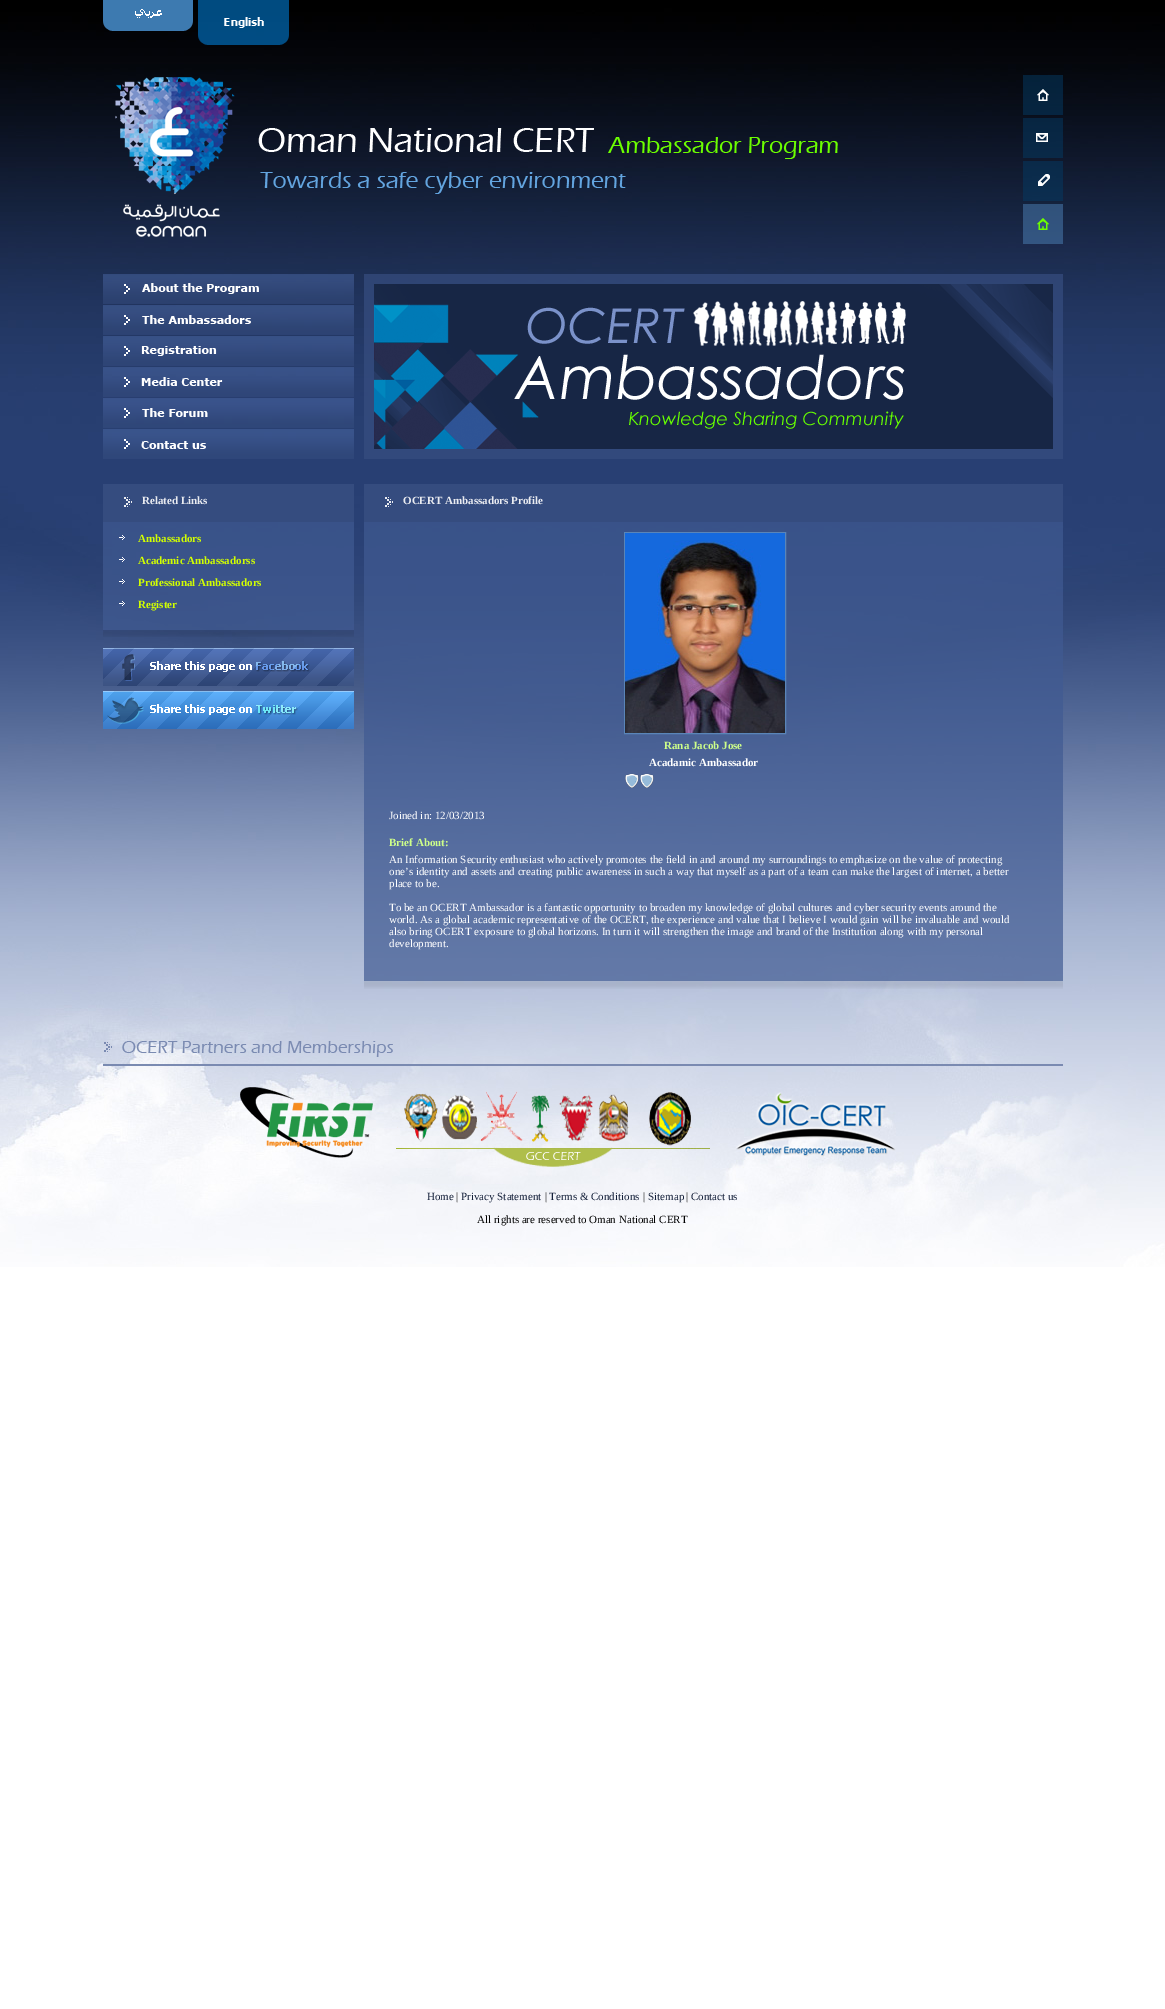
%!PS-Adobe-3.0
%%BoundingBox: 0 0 1165 2009
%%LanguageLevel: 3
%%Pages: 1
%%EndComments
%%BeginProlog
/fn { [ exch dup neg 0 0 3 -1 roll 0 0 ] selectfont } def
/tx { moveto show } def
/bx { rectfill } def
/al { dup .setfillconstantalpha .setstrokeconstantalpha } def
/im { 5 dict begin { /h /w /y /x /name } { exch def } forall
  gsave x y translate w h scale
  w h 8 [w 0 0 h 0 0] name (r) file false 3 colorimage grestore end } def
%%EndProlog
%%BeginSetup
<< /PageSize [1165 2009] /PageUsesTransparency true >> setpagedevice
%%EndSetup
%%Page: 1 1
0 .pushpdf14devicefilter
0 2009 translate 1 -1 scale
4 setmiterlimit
1 setgray
0 0 1165 2009 bx
(image0.raw) 0 0 1165 1267 im
(image1.raw) 103 0 90 31 im
(image2.raw) 198 0 91 45 im
(image3.raw) 115 77 723 160 im
(image4.raw) 1023 75 40 40 im
(image5.raw) 1023 118 40 40 im
(image6.raw) 1023 161 40 40 im
(image7.raw) 1023 204 40 40 im
(image8.raw) 103 274 251 30 im
(image9.raw) 103 305 251 30 im
(image10.raw) 103 336 251 30 im
(image11.raw) 103 367 251 30 im
(image12.raw) 103 398 251 30 im
(image13.raw) 103 429 251 30 im
0.7 al
0.212 0.302 0.502 setrgbcolor
364 274 699 185 bx
1 al
(image14.raw) 374 284 679 165 im
0.208 0.298 0.498 setrgbcolor
103 484 251 38 bx
(image15.raw) 124 497 8 10 im
/LiberationSerif-Bold 11 fn
0.918 0.925 0.945 setrgbcolor
(Related Links) 142 504 tx
0.7 al
0.251 0.353 0.573 setrgbcolor
103 522 251 108 bx
1 al
(image16.raw) 119 535 6 5 im
0.824 1 0 setrgbcolor
(Ambassadors) 138 542 tx
(image16.raw) 119 557 6 5 im
(Academic Ambassadorss) 138 564 tx
(image17.raw) 119 579 6 5 im
(Professional Ambassadors) 138 586 tx
(image18.raw) 119 601 6 5 im
(Register) 138 608 tx
(image19.raw) 103 630 251 7 im
(image20.raw) 103 648 251 38 im
(image21.raw) 103 691 251 38 im
0.208 0.298 0.498 setrgbcolor
364 484 699 38 bx
(image15.raw) 385 497 8 10 im
0.918 0.925 0.945 setrgbcolor
(OCERT Ambassadors Profile) 403 504 tx
0.7 al
0.251 0.353 0.573 setrgbcolor
364 522 699 459 bx
1 al
0.353 0.522 0.722 setrgbcolor
624.5 532.5 161 201 rectstroke
(image22.raw) 625 533 160 200 im
0.808 1 0.537 setrgbcolor
(Rana Jacob Jose) 664 749 tx
1 setgray
(Acadamic Ambassador) 649 766 tx
(image23.raw) 625 773 29 15 im
/LiberationSerif-Regular 11 fn
(Joined in: 12/03/2013) 389 819 tx
/LiberationSerif-Bold 11 fn
0.808 1 0.537 setrgbcolor
(Brief About:) 389 846 tx
/LiberationSerif-Regular 11 fn
1 setgray
(An Information Security enthusiast who actively promotes the field in and around my surroundings to emphasize on the value of protecting) 389 863 tx
(one’s identity and assets and creating public awareness in such a way that myself as a part of a team can make the largest of internet, a better) 389 875 tx
(place to be.) 389 887 tx
(To be an OCERT Ambassador is a fantastic opportunity to broaden my knowledge of global cultures and cyber security events around the) 389 911 tx
(world. As a global academic representative of the OCERT, the experience and value that I believe I would gain will be invaluable and would) 389 923 tx
(also bring OCERT exposure to global horizons. In turn it will strengthen the image and brand of the Institution along with my personal) 389 935 tx
(development.) 389 947 tx
(image24.raw) 364 981 699 8 im
(image25.raw) 103 1041 960 25 im
(image26.raw) 240 1087 656 80 im
0.075 0.122 0.224 setrgbcolor
(Home) 427 1200 tx
0 setgray
(|) 456 1200 tx
0.075 0.122 0.224 setrgbcolor
(Privacy Statement) 461 1200 tx
0 setgray
(|) 545 1200 tx
0.075 0.122 0.224 setrgbcolor
(Terms & Conditions) 549 1200 tx
0 setgray
(|) 643 1200 tx
0.075 0.122 0.224 setrgbcolor
(Sitemap) 648 1200 tx
0 setgray
(|) 686 1200 tx
0.075 0.122 0.224 setrgbcolor
(Contact us) 691 1200 tx
0 setgray
(All rights are reserved to Oman National CERT) 477 1223 tx
.poppdf14devicefilter showpage
%%EOF
